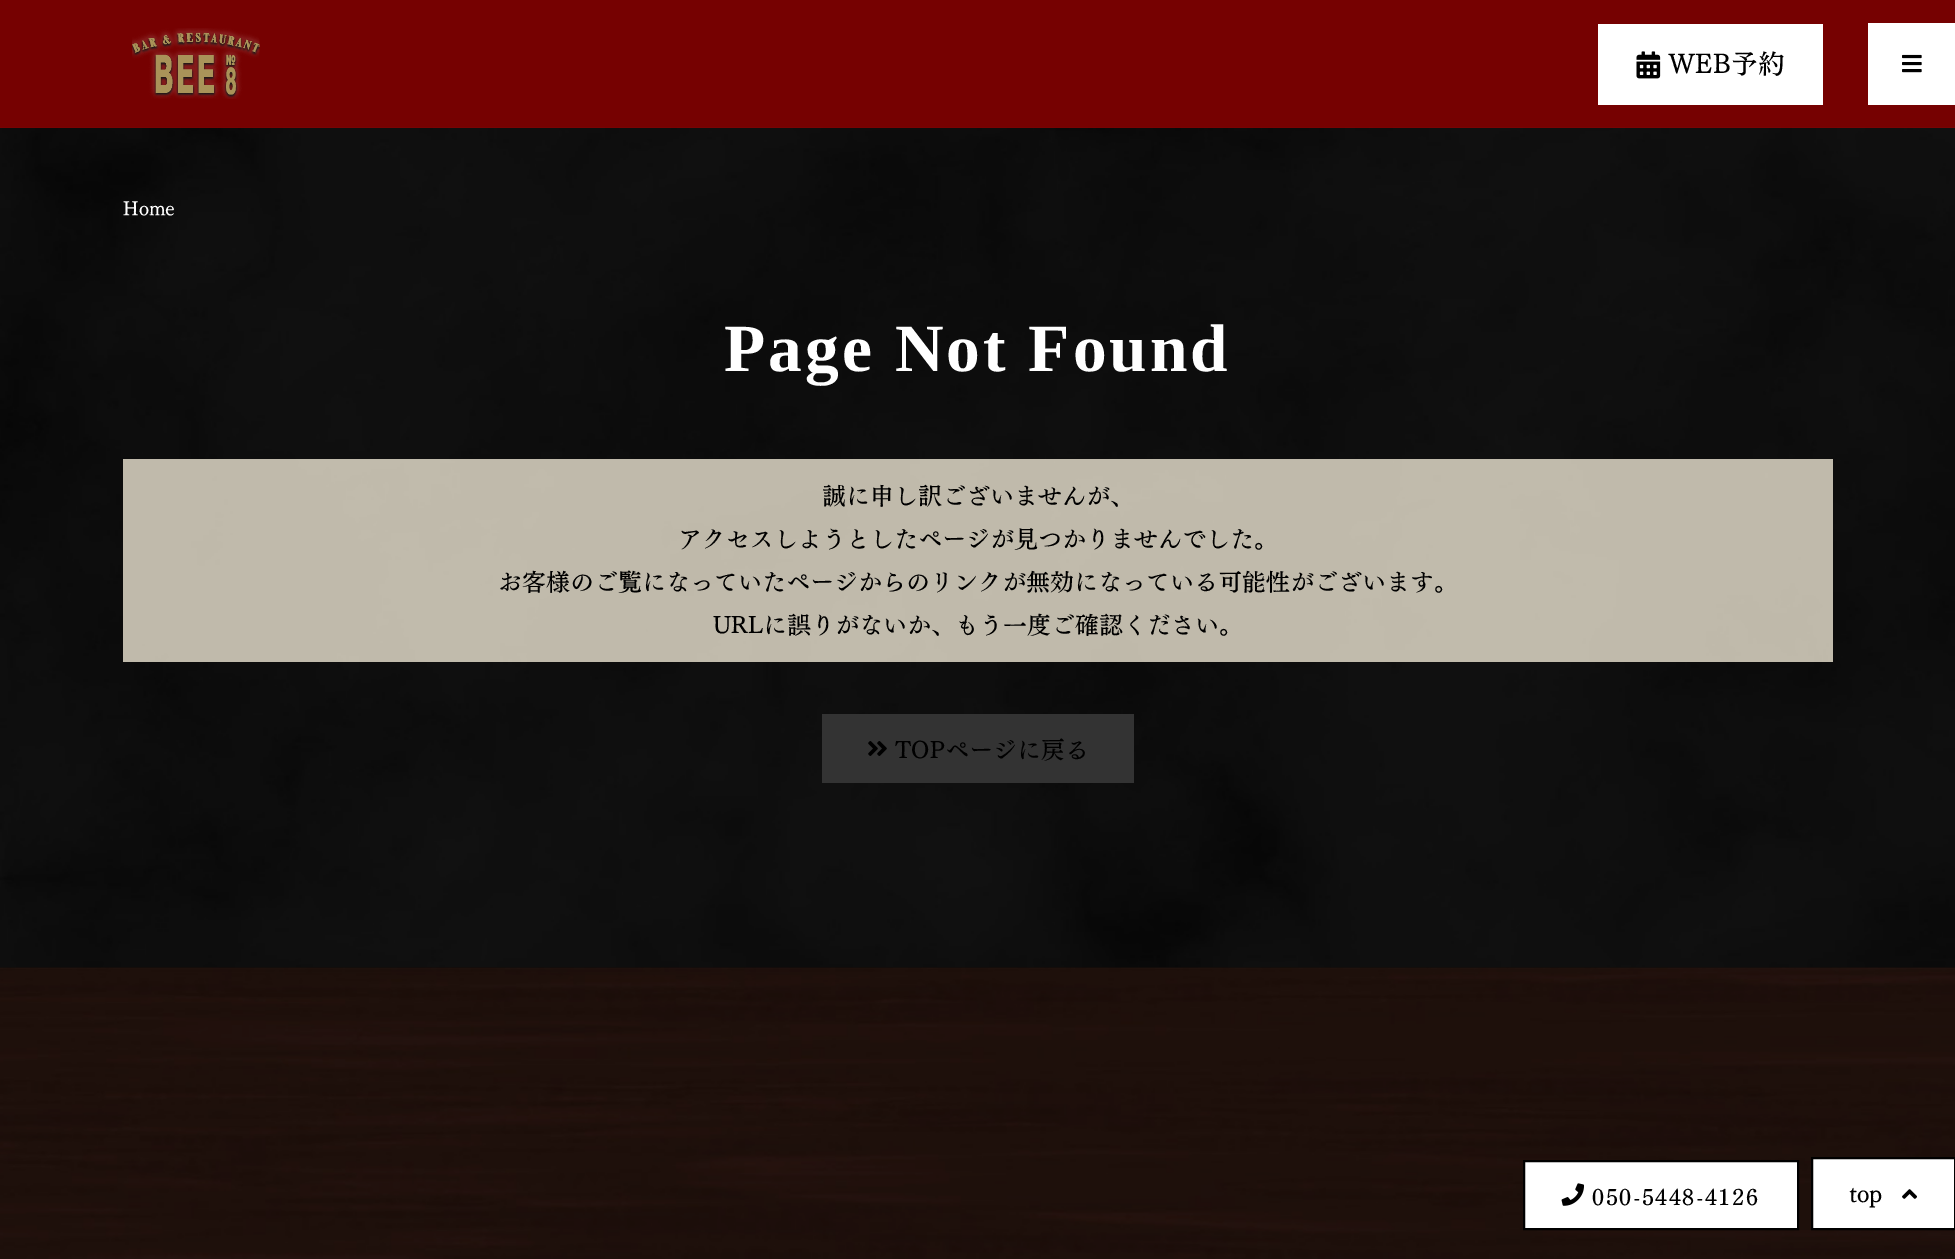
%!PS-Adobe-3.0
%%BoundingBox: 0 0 1955 1259
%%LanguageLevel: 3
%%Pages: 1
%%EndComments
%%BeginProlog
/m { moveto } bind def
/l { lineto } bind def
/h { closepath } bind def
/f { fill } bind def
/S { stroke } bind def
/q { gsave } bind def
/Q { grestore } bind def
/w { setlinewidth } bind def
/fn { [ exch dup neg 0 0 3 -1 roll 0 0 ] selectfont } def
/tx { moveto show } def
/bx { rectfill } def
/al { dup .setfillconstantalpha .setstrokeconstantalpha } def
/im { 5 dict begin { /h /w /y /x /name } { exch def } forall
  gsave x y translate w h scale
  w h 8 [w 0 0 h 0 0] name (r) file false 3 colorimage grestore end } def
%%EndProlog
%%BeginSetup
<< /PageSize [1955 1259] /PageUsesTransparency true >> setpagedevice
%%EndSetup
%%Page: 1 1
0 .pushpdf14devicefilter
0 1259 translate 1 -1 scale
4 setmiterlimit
0 setgray
0 0 1955 1259 bx
(image3.raw) 0 127 1955 841 im
0.69 al
0.671 0.008 0.008 setrgbcolor
0 0 1955 128 bx
1 al
(image0.raw) 132 28 128 71 im
1 setgray
1598 24 225 81 bx
(image1.raw) 1636 51 25 28 im
/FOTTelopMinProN-SemiBold 27 fn
0 setgray
(WEB予約) 1668 74 tx
1 setgray
1868 23 87 82 bx
(image2.raw) 1902 54 20 19 im
/FOTTelopMinProN-SemiBold 19.5 fn
(Home) 123 216 tx
/LiberationSerif-Bold 67.5 fn
724 371 m 3 0 (Page Not Found) ashow
0.75 al
0.988 0.957 0.878 setrgbcolor
123 459 1710 203 bx
/FOTTelopMinProN-SemiBold 24 fn
1 al
0 setgray
(誠に申し訳ございませんが、) 822 505 tx
(アクセスしようとしたページが見つかりませんでした。) 678 548 tx
(お客様のご覧になっていたページからのリンクが無効になっている可能性がございます。) 498 591 tx
(URLに誤りがないか、もう一度ご確認ください。) 713 634 tx
0.2 setgray
822 714 312 69 bx
(image4.raw) 868 741 19 15 im
0 setgray
(TOPページに戻る) 895 759 tx
(image5.raw) 0 967 1955 292 im
1 setgray
1524 1161 m 1798 1161 l 1798 1229 l 1524 1229 l h q f Q
0 setgray
2 w
S
(image6.raw) 1561 1183 23 23 im
/FOTTelopMinProN-SemiBold 22.5 fn
1592 1206 m 1.5 0 (050-5448-4126) ashow
1 setgray
1812 1158 m 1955 1158 l 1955 1229 l 1812 1229 l h q f Q
0 setgray
S
/FOTTelopMinProN-SemiBold 24 fn
(top) 1849 1203 tx
(image7.raw) 1902 1189 15 10 im
.poppdf14devicefilter showpage
%%EOF
